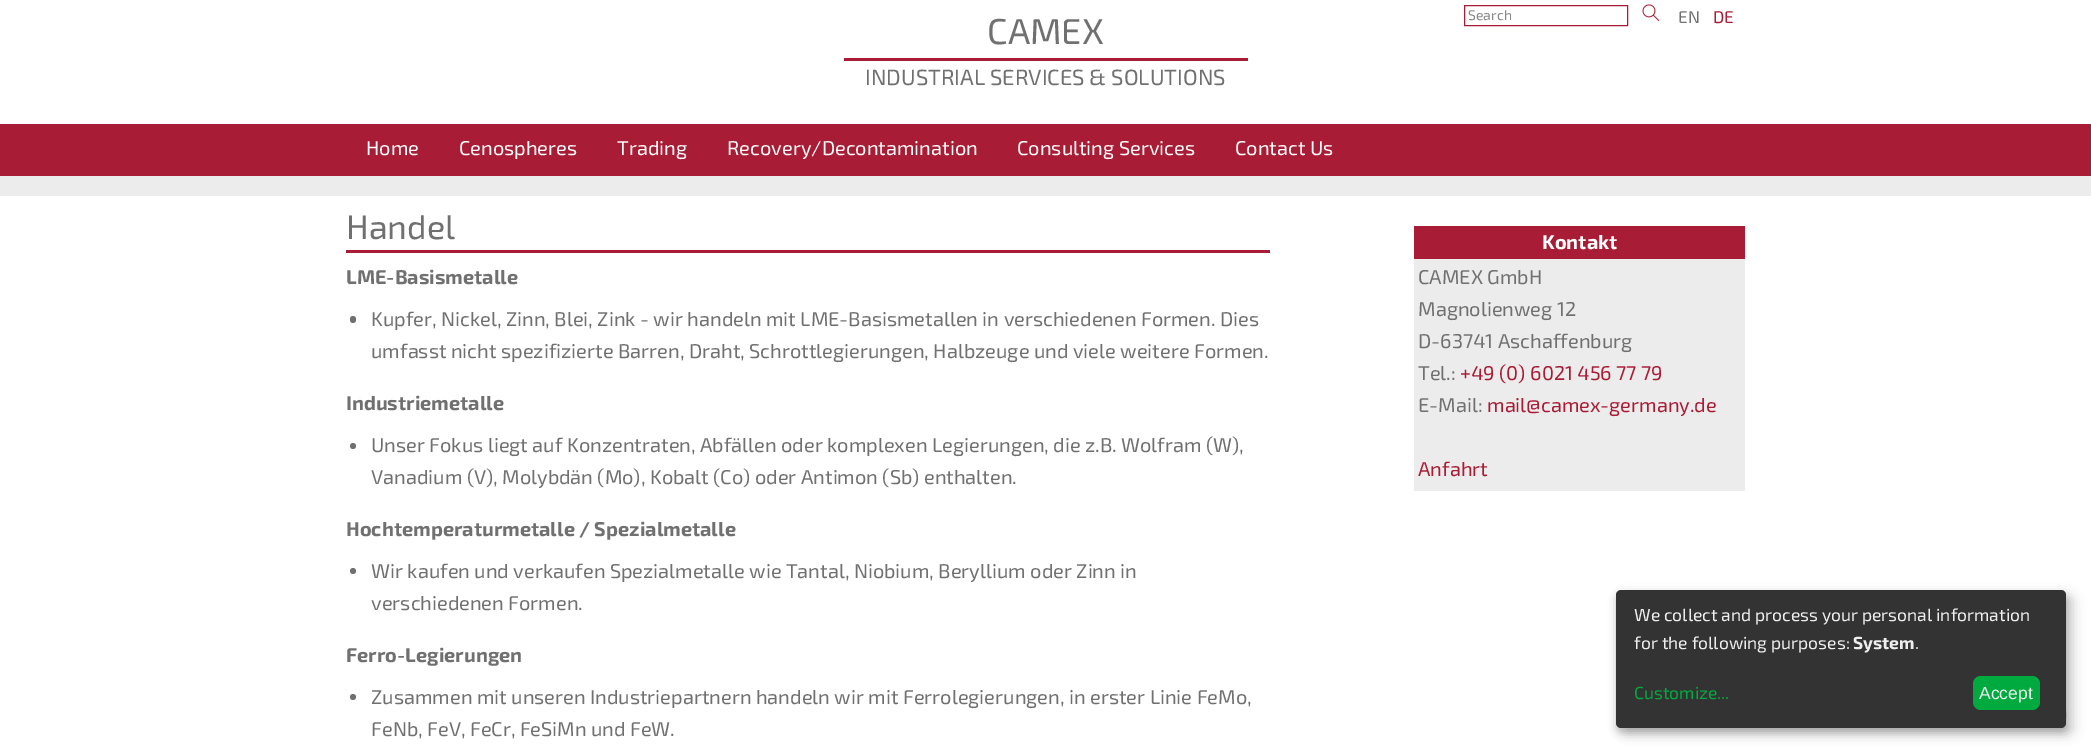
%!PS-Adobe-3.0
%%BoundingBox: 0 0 2091 752
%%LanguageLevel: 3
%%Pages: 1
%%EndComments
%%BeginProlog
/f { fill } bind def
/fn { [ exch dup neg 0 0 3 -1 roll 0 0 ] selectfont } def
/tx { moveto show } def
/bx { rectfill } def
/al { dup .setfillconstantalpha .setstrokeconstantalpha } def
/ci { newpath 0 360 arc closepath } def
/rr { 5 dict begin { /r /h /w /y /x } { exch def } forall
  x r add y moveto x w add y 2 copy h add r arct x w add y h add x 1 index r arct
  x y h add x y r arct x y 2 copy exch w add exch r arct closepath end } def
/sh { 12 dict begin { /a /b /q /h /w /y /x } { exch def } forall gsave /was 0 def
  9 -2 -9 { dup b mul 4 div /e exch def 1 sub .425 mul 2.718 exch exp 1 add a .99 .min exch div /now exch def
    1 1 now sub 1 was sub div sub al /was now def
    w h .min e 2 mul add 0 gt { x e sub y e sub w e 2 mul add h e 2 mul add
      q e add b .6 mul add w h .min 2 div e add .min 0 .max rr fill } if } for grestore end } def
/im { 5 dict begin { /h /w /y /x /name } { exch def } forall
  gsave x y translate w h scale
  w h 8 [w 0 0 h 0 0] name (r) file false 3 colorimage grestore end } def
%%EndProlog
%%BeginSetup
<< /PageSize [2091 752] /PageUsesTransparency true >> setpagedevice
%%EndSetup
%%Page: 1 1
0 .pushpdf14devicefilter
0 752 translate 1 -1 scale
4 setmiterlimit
1 setgray
0 0 2091 752 bx
/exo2-Regular 36 fn
0.443 0.439 0.439 setrgbcolor
(CAMEX) 987 44 tx
0.663 0.11 0.208 setrgbcolor
844 58 404 3 bx
/exo2-Regular 22 fn
0.443 0.439 0.439 setrgbcolor
(INDUSTRIAL SERVICES & SOLUTIONS) 865 85 tx
0.663 0.11 0.208 setrgbcolor
1464.5 5.5 163 20 rectstroke
/exo2-Regular 14 fn
0.533 setgray
(Search) 1468 20 tx
(image0.raw) 1642 4 18 17 im
/exo2-Regular 17 fn
0.443 0.439 0.439 setrgbcolor
(EN) 1678 23 tx
0.663 0.11 0.208 setrgbcolor
(DE) 1713 23 tx
0 124 2091 52 bx
/exo2-Regular 20 fn
1 setgray
(Home) 366 155 tx
(Cenospheres) 459 155 tx
(Trading) 617 155 tx
(Recovery/Decontamination) 727 155 tx
(Consulting Services) 1017 155 tx
(Contact Us) 1235 155 tx
0.929 0.925 0.925 setrgbcolor
0 176 2091 20 bx
0.663 0.11 0.208 setrgbcolor
346 250 924 3 bx
/exo2-Regular 34 fn
0.443 0.439 0.439 setrgbcolor
(Handel) 346 239 tx
/exo2-Bold 20 fn
(LME-Basismetalle) 346 284 tx
350 316 6 7 3 rr f
/exo2-Regular 20 fn
(Kupfer, Nickel, Zinn, Blei, Zink - wir handeln mit LME-Basismetallen in verschiedenen Formen. Dies) 371 326 tx
(umfasst nicht spezifizierte Barren, Draht, Schrottlegierungen, Halbzeuge und viele weitere Formen.) 371 358 tx
/exo2-Bold 20 fn
(Industriemetalle) 346 410 tx
353 446 3 ci f
/exo2-Regular 20 fn
(Unser Fokus liegt auf Konzentraten, Abfällen oder komplexen Legierungen, die z.B. Wolfram \(W\),) 371 452 tx
(Vanadium \(V\), Molybdän \(Mo\), Kobalt \(Co\) oder Antimon \(Sb\) enthalten.) 371 484 tx
/exo2-Bold 20 fn
(Hochtemperaturmetalle / Spezialmetalle) 346 536 tx
353 571 3 ci f
/exo2-Regular 20 fn
(Wir kaufen und verkaufen Spezialmetalle wie Tantal, Niobium, Beryllium oder Zinn in) 371 578 tx
(verschiedenen Formen.) 371 610 tx
/exo2-Bold 20 fn
(Ferro-Legierungen) 346 662 tx
353 697 3 ci f
/exo2-Regular 20 fn
(Zusammen mit unseren Industriepartnern handeln wir mit Ferrolegierungen, in erster Linie FeMo,) 371 704 tx
(FeNb, FeV, FeCr, FeSiMn und FeW.) 371 736 tx
0.929 0.925 0.925 setrgbcolor
1414 259 331 232 bx
0.663 0.11 0.208 setrgbcolor
1414 226 331 33 bx
/exo2-Bold 20 fn
1 setgray
(Kontakt) 1542 249 tx
/exo2-Regular 20 fn
0.443 0.439 0.439 setrgbcolor
(CAMEX GmbH) 1418 284 tx
(Magnolienweg 12) 1418 316 tx
(D-63741 Aschaffenburg) 1418 348 tx
(Tel.:) 1418 380 tx
0.663 0.11 0.208 setrgbcolor
(+49 \(0\) 6021 456 77 79) 1460 380 tx
0.443 0.439 0.439 setrgbcolor
(E-Mail:) 1418 412 tx
0.663 0.11 0.208 setrgbcolor
(mail@camex-germany.de) 1487 412 tx
(Anfahrt) 1418 476 tx
(image1.raw) 2066 710 1 10 im
0 setgray
1623 596 450 138 5 6 0.19 sh
1616 595 450 138 5 4 0.2 sh
0.2 setgray
1616 590 450 138 5 rr f
/exo2-Regular 17.5 fn
0.933 setgray
(We collect and process your personal information) 1634 621 tx
(for the following purposes:) 1634 649 tx
/exo2-Bold 17.5 fn
(System) 1853 649 tx
/exo2-Regular 17.5 fn
(.) 1915 649 tx
0 0.667 0.243 setrgbcolor
(Customize...) 1634 699 tx
1973 676 67 34 8 rr f
/LiberationSans-Regular 17.5 fn
0.933 setgray
(Accept) 1979 699 tx
.poppdf14devicefilter showpage
%%EOF
